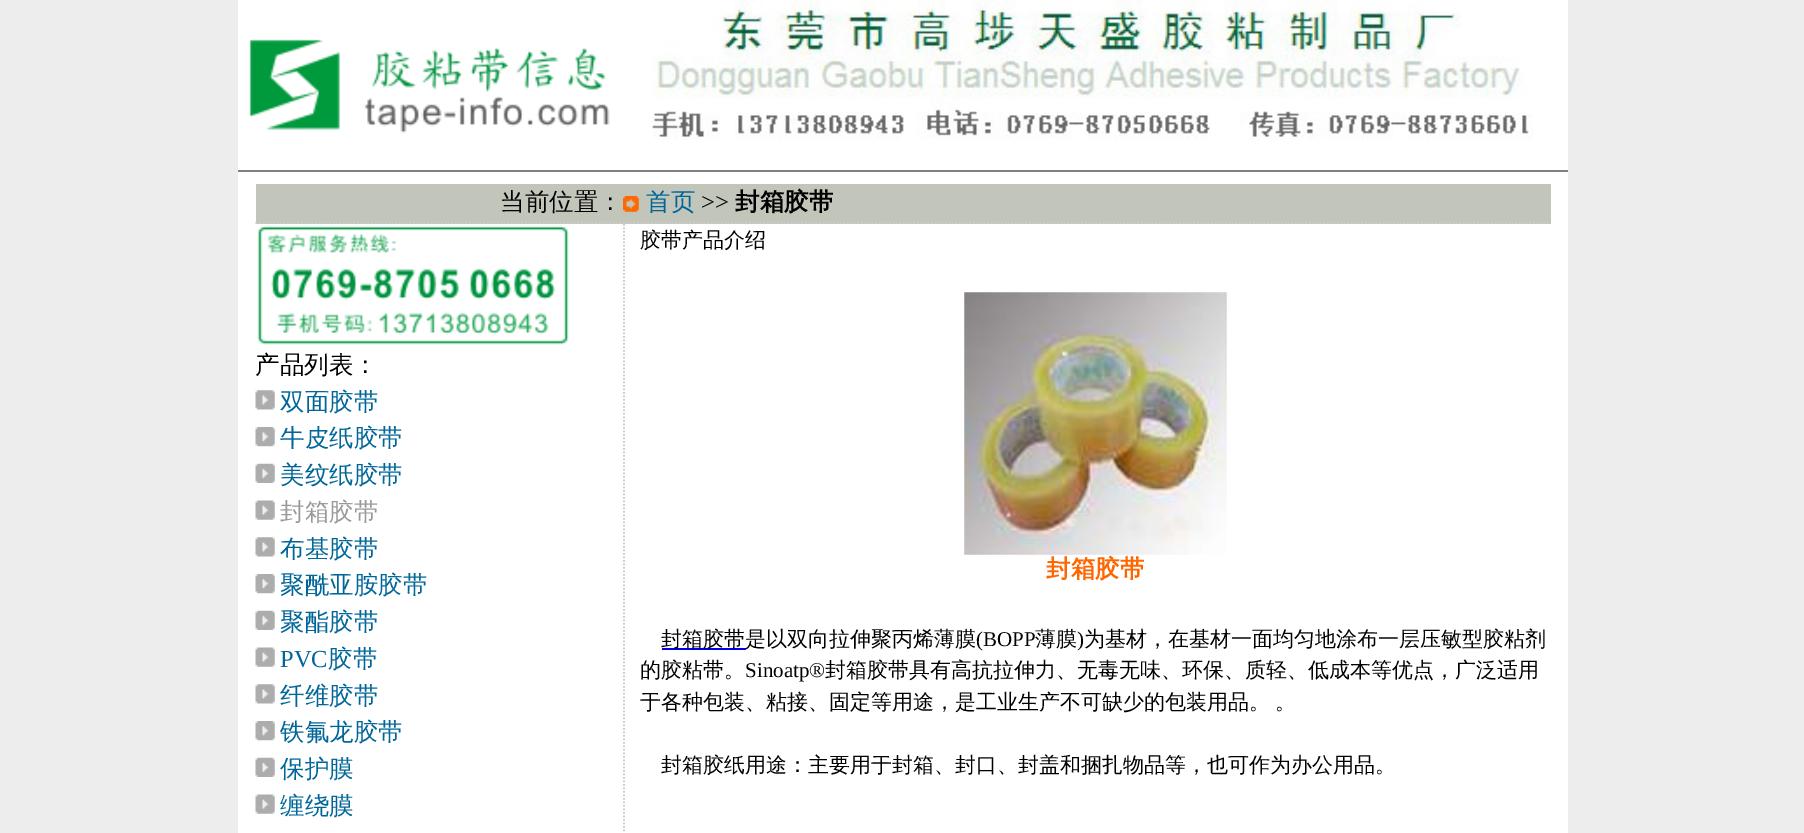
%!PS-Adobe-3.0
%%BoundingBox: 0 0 1804 833
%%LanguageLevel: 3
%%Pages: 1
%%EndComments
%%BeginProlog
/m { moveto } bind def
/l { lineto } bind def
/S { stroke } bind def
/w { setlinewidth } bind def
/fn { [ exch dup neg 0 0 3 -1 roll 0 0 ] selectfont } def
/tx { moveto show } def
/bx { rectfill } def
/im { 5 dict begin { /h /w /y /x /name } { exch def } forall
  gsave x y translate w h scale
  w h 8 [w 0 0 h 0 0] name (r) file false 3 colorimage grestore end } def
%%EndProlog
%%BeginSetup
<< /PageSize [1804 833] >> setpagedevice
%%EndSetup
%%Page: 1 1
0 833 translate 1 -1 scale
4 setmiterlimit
0.929 setgray
0 0 1804 833 bx
1 setgray
238 0 1330 833 bx
(image0.raw) 249 39 361 95 im
(image1.raw) 652 0 881 140 im
0.502 setgray
238 170 1330 2 bx
0.761 0.773 0.729 setrgbcolor
256 184 1295 40 bx
0.8 setgray
1.8 w
[1.75 1.75] 0 setdash
255.5 223 m 623 223 l S
/WenQuanYiZenHei-Medium 24.5 fn
0 setgray
(当前位置：) 500 210 tx
0.8 setgray
623 223 m 640.5 223 l S
(image2.raw) 623 196 16 16 im
640.5 223 m 1550.5 223 l S
0 0.4 0.6 setrgbcolor
(首页) 646 210 tx
/LiberationSerif-Regular 24.5 fn
0 setgray
(>>) 701 210 tx
/WenQuanYiZenHei-Bold 24.5 fn
(封箱胶带) 735 210 tx
0.8 setgray
624 224 m 624 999 l S
/WenQuanYiZenHei-Medium 21 fn
0 setgray
(胶带产品介绍) 640 247 tx
(image3.raw) 257 225 312 120 im
/WenQuanYiZenHei-Medium 24.5 fn
(产品列表：) 255 373 tx
(image4.raw) 255 390 20 20 im
0 0.4 0.6 setrgbcolor
(双面胶带) 280 410 tx
(image5.raw) 255 427 20 20 im
(牛皮纸胶带) 280 446 tx
(image6.raw) 255 463 20 20 im
(美纹纸胶带) 280 483 tx
(image7.raw) 255 500 20 20 im
0.6 setgray
(封箱胶带) 280 520 tx
(image4.raw) 255 537 20 20 im
0 0.4 0.6 setrgbcolor
(布基胶带) 280 557 tx
(image5.raw) 255 574 20 20 im
(聚酰亚胺胶带) 280 593 tx
(image6.raw) 255 610 20 20 im
(聚酯胶带) 280 630 tx
(image7.raw) 255 647 20 20 im
/LiberationSerif-Regular 24.5 fn
(PVC) 280 667 tx
/WenQuanYiZenHei-Medium 24.5 fn
(胶带) 328 667 tx
(image4.raw) 255 684 20 20 im
(纤维胶带) 280 704 tx
(image5.raw) 255 721 20 20 im
(铁氟龙胶带) 280 740 tx
(image6.raw) 255 757 20 20 im
(保护膜) 280 777 tx
(image7.raw) 255 794 20 20 im
(缠绕膜) 280 814 tx
(image8.raw) 964 292 263 263 im
/WenQuanYiZenHei-Bold 24.5 fn
1 0.4 0 setrgbcolor
(封箱胶带) 1046 577 tx
0 0 0.933 setrgbcolor
662 648 84 2 bx
/WenQuanYiZenHei-Medium 21 fn
0 setgray
(封箱胶带是以双向拉伸聚丙烯薄膜) 661 646 tx
/LiberationSerif-Regular 21 fn
(\(BOPP) 976 646 tx
/WenQuanYiZenHei-Medium 21 fn
(薄膜) 1035 646 tx
/LiberationSerif-Regular 21 fn
(\)) 1077 646 tx
/WenQuanYiZenHei-Medium 21 fn
(为基材，在基材一面均匀地涂布一层压敏型胶粘剂) 1084 646 tx
(的胶粘带。) 640 677 tx
/LiberationSerif-Regular 21 fn
(Sinoatp®) 745 677 tx
/WenQuanYiZenHei-Medium 21 fn
(封箱胶带具有高抗拉伸力、无毒无味、环保、质轻、低成本等优点，广泛适用) 825 677 tx
640 709 m -1 0 32 (于各种包装、粘接、固定等用途，是工业生产不可缺少的包装用品。 。) widthshow
(封箱胶纸用途：主要用于封箱、封口、封盖和捆扎物品等，也可作为办公用品。) 661 772 tx
showpage
%%EOF
